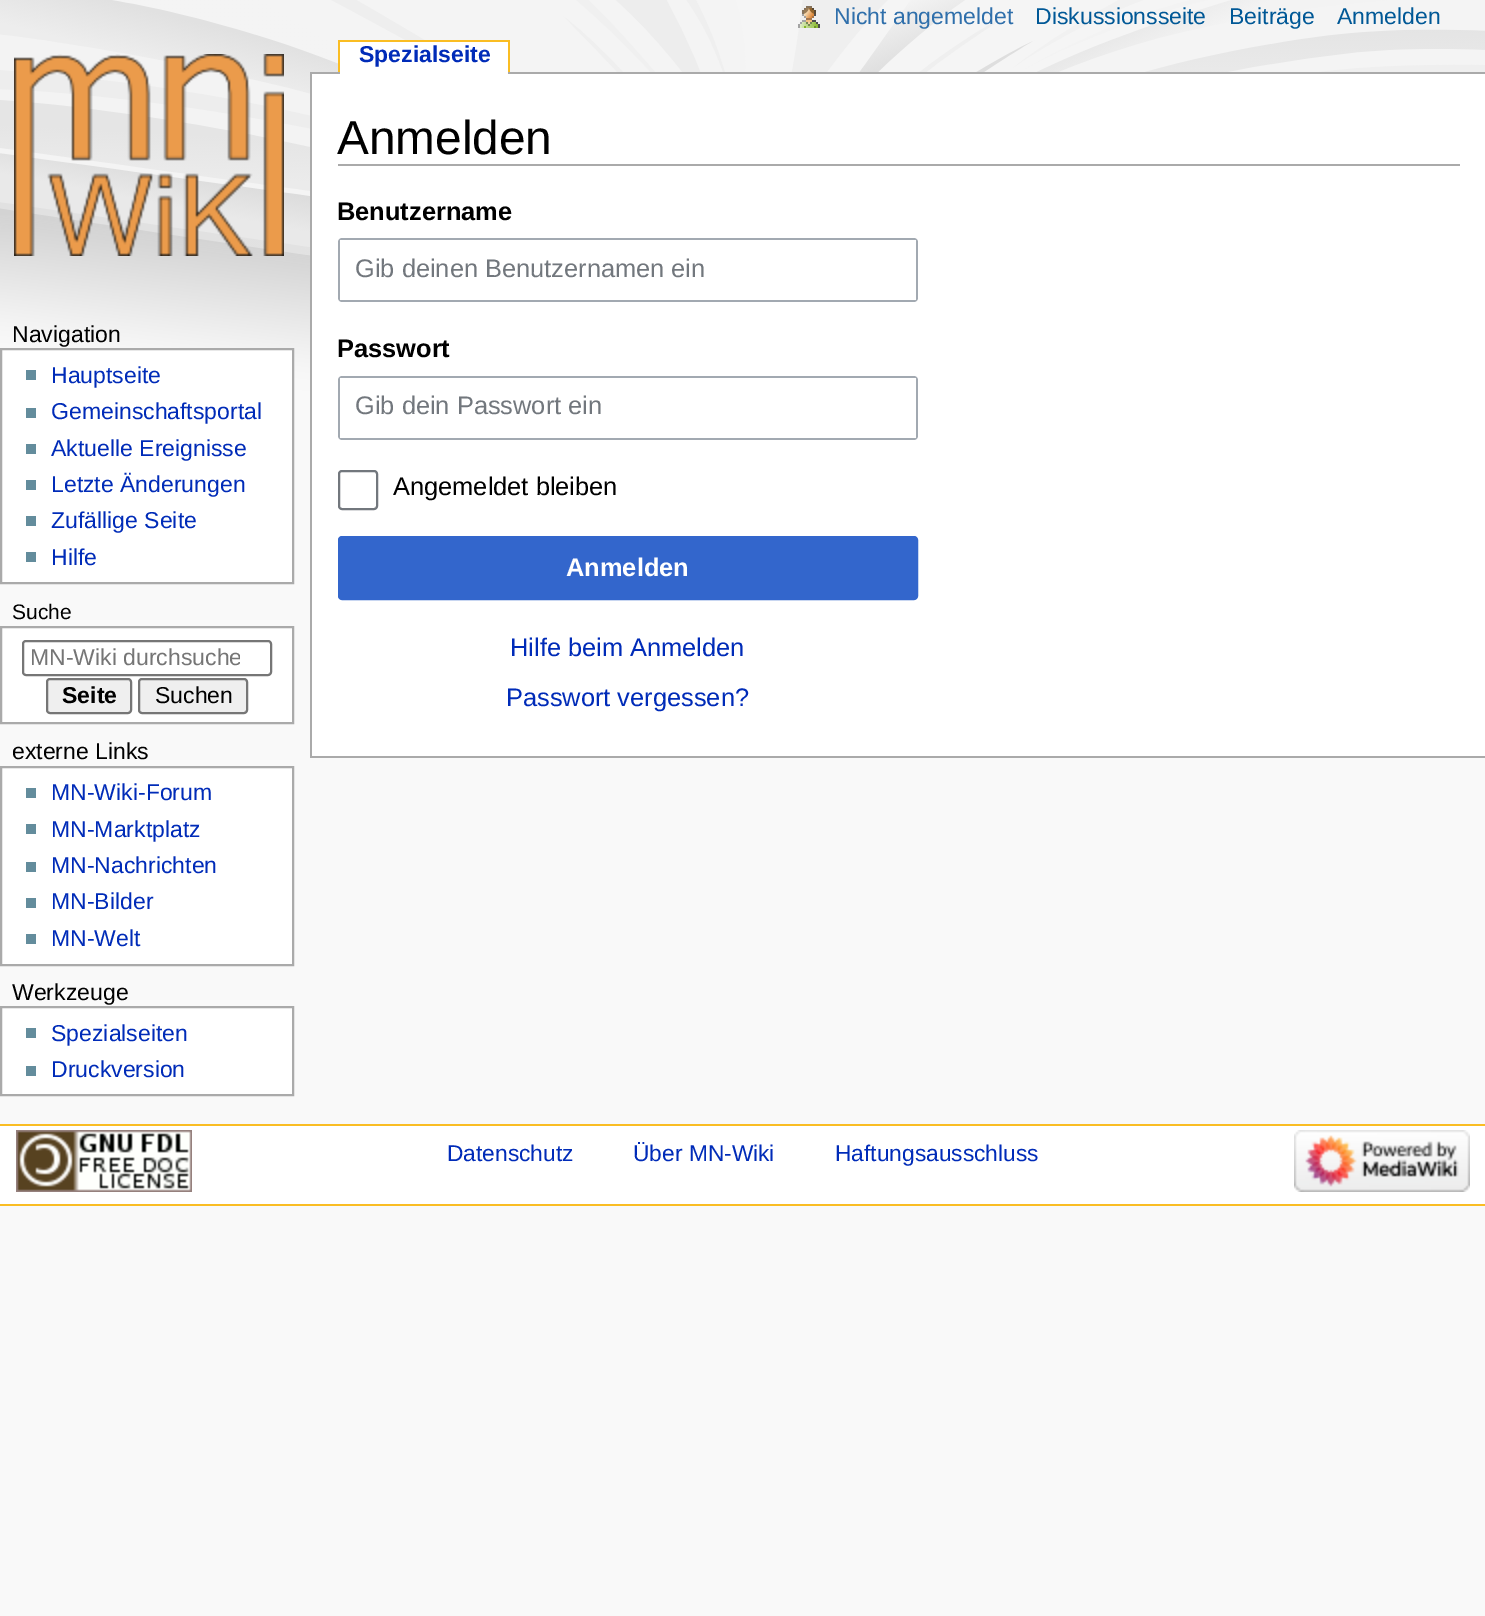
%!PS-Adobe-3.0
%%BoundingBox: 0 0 1485 1616
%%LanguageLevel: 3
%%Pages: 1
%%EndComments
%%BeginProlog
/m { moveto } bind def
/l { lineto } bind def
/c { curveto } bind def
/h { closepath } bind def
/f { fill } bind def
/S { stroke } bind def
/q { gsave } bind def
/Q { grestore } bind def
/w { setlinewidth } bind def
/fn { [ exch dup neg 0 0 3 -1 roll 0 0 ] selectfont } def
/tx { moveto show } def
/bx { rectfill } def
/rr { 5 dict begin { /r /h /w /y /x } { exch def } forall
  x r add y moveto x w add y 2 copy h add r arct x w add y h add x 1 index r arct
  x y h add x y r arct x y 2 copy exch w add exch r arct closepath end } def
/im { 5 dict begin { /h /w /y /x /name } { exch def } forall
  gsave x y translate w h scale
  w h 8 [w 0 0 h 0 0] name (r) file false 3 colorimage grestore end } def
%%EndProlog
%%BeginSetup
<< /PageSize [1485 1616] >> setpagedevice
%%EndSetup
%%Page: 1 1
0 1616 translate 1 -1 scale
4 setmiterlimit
0.976 setgray
0 0 1485 1616 bx
(image0.raw) 0 0 1485 419 im
(image1.raw) 798 6 22 22 im
/LiberationSans-Regular 23 fn
0.184 0.435 0.671 setrgbcolor
(Nicht angemeldet) 834 24 tx
0 0.345 0.588 setrgbcolor
(Diskussionsseite) 1035 24 tx
(Beiträge) 1229 24 tx
(Anmelden) 1337 24 tx
(image2.raw) 14 54 270 202 im
0.667 setgray
310 72 1175 2 bx
1 setgray
340 42 168 32 bx
/LiberationSans-Bold 23 fn
0 0.169 0.722 setrgbcolor
(Spezialseite) 359 62 tx
0.98 0.741 0.137 setrgbcolor
338 40 172 2 bx
508 40 2 32 bx
338 40 2 32 bx
/LiberationSans-Regular 23 fn
0 setgray
(Navigation) 12 342 tx
1 setgray
1 349 m 293 349 l 293 583 l 1 583 l h q f Q
0.667 setgray
2 w
S
0.388 0.549 0.612 setrgbcolor
26 370 10 10 bx
0 0.169 0.722 setrgbcolor
(Hauptseite) 51 383 tx
0.388 0.549 0.612 setrgbcolor
26 408 10 10 bx
0 0.169 0.722 setrgbcolor
(Gemeinschaftsportal) 51 419 tx
0.388 0.549 0.612 setrgbcolor
26 444 10 10 bx
0 0.169 0.722 setrgbcolor
(Aktuelle Ereignisse) 51 456 tx
0.388 0.549 0.612 setrgbcolor
26 480 10 10 bx
0 0.169 0.722 setrgbcolor
(Letzte Änderungen) 51 492 tx
0.388 0.549 0.612 setrgbcolor
26 516 10 10 bx
0 0.169 0.722 setrgbcolor
(Zufällige Seite) 51 528 tx
0.388 0.549 0.612 setrgbcolor
26 552 10 10 bx
0 0.169 0.722 setrgbcolor
(Hilfe) 51 565 tx
/LiberationSans-Regular 21 fn
0 setgray
(Suche) 12 619 tx
1 setgray
1 627 m 293 627 l 293 723 l 1 723 l h q f Q
0.667 setgray
S
0.463 setgray
23 641 248 34 3 rr S
q
30 646 210 24 rectclip
/LiberationSans-Regular 23 fn
0.459 setgray
(MN-Wiki durchsuche) 30 665 tx
Q
0.937 setgray
47 679 84 34 3 rr q f Q
0.463 setgray
S
/LiberationSans-Bold 23 fn
0 setgray
(Seite) 62 703 tx
0.937 setgray
139 679 108 34 3 rr q f Q
0.463 setgray
S
/LiberationSans-Regular 23 fn
0 setgray
(Suchen) 155 703 tx
(externe Links) 12 759 tx
1 setgray
1 767 m 293 767 l 293 965 l 1 965 l h q f Q
0.667 setgray
S
0.388 0.549 0.612 setrgbcolor
26 788 10 10 bx
0 0.169 0.722 setrgbcolor
(MN-Wiki-Forum) 51 800 tx
0.388 0.549 0.612 setrgbcolor
26 824 10 10 bx
0 0.169 0.722 setrgbcolor
(MN-Marktplatz) 51 837 tx
0.388 0.549 0.612 setrgbcolor
26 862 10 10 bx
0 0.169 0.722 setrgbcolor
(MN-Nachrichten) 51 873 tx
0.388 0.549 0.612 setrgbcolor
26 898 10 10 bx
0 0.169 0.722 setrgbcolor
(MN-Bilder) 51 909 tx
0.388 0.549 0.612 setrgbcolor
26 934 10 10 bx
0 0.169 0.722 setrgbcolor
(MN-Welt) 51 946 tx
0 setgray
(Werkzeuge) 12 1000 tx
1 setgray
1 1007 m 293 1007 l 293 1095 l 1 1095 l h q f Q
0.667 setgray
S
0.388 0.549 0.612 setrgbcolor
26 1028 10 10 bx
0 0.169 0.722 setrgbcolor
(Spezialseiten) 51 1041 tx
0.388 0.549 0.612 setrgbcolor
26 1066 10 10 bx
0 0.169 0.722 setrgbcolor
(Druckversion) 51 1077 tx
1 setgray
312 74 1173 682 bx
0.667 setgray
310 756 1175 2 bx
310 72 2 686 bx
338 164 1122 2 bx
/LiberationSans-Regular 47.75 fn
0 setgray
(Anmelden) 337 154 tx
/LiberationSans-Bold 25.4 fn
(Benutzername) 337 220 tx
0.635 0.663 0.694 setrgbcolor
342 238 m 340 238 338 240 338 242 c 338 298 l 338 300 340 302 342 302 c 914 302 l 916 302 918 300 918 298 c 918 242 l 918 240 916 238 914 238 c h 340 240 m 340 300 l 916 300 l 916 240 l h eofill
/LiberationSans-Regular 25.4 fn
0.447 0.467 0.49 setrgbcolor
(Gib deinen Benutzernamen ein) 355 277 tx
/LiberationSans-Bold 25.4 fn
0 setgray
(Passwort) 337 357 tx
0.635 0.663 0.694 setrgbcolor
342 376 m 340 376 338 378 338 380 c 338 436 l 338 438 340 440 342 440 c 914 440 l 916 440 918 438 918 436 c 918 380 l 918 378 916 376 914 376 c h 340 378 m 340 438 l 916 438 l 916 378 l h eofill
/LiberationSans-Regular 25.4 fn
0.447 0.467 0.49 setrgbcolor
(Gib dein Passwort ein) 355 414 tx
339 471 38 38 3 rr S
0 setgray
(Angemeldet bleiben) 393 495 tx
0.2 0.4 0.8 setrgbcolor
339 537 578 62 3 rr q f Q
S
/LiberationSans-Bold 25.4 fn
1 setgray
(Anmelden) 566 576 tx
/LiberationSans-Regular 25.4 fn
0 0.169 0.722 setrgbcolor
(Hilfe beim Anmelden) 510 656 tx
(Passwort vergessen?) 506 706 tx
1 setgray
0 1126 1485 78 bx
0.98 0.741 0.137 setrgbcolor
0 1124 1485 2 bx
0 1204 1485 2 bx
(image3.raw) 16 1130 176 62 im
/LiberationSans-Regular 22.75 fn
0 0.169 0.722 setrgbcolor
(Datenschutz) 447 1161 tx
(Über MN-Wiki) 633 1161 tx
(Haftungsausschluss) 835 1161 tx
(image4.raw) 1294 1130 176 62 im
showpage
%%EOF
